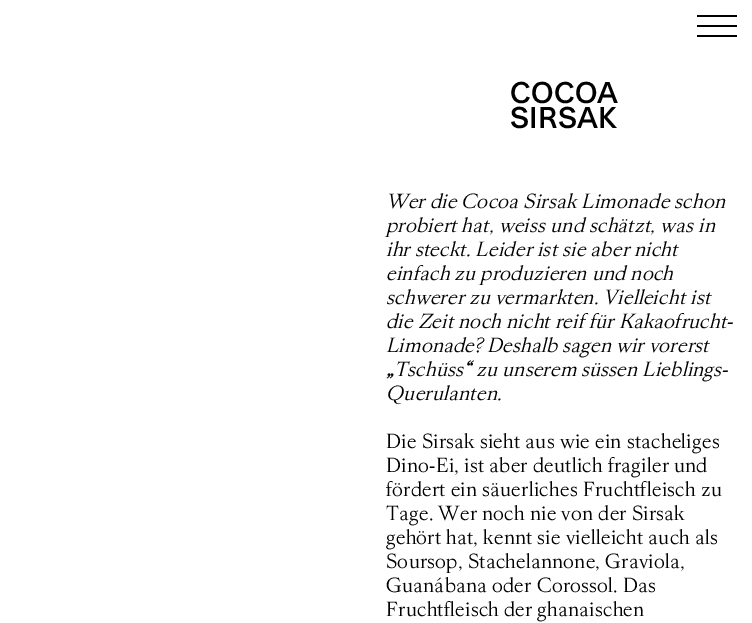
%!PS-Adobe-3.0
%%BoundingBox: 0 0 752 623
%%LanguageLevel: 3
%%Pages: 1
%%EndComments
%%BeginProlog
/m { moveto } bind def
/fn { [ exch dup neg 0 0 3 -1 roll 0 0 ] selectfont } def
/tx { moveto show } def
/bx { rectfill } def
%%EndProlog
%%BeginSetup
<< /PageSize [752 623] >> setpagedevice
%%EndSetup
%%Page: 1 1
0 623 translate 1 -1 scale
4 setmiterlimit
1 setgray
0 0 752 623 bx
0 setgray
697 15 40 2 bx
697 25 40 2 bx
697 35 40 2 bx
/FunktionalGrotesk-Medium 31 fn
(COCOA) 510 103 tx
(SIRSAK) 510 128 tx
/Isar-LightItalic 22 fn
386 208 m 0.3 0 (Wer die Cocoa Sirsak Limonade schon) ashow
386 232 m 0.3 0 (probiert hat, weiss und schätzt, was in) ashow
386 256 m 0.3 0 (ihr steckt. Leider ist sie aber nicht) ashow
386 280 m 0.3 0 (einfach zu produzieren und noch) ashow
386 304 m 0.3 0 (schwerer zu vermarkten. Vielleicht ist) ashow
386 328 m 0.3 0 (die Zeit noch nicht reif für Kakaofrucht-) ashow
386 352 m 0.3 0 (Limonade? Deshalb sagen wir vorerst) ashow
394 376 m 0.3 0 (Tschüss) ashow
/Isar-BoldItalic 22 fn
463 376 m 0.3 0 (“) ashow
/Isar-LightItalic 22 fn
476 376 m 0.3 0 (zu unserem süssen Lieblings-) ashow
/Isar-BoldItalic 22 fn
386 376 m 0.3 0 („) ashow
/Isar-LightItalic 22 fn
386 400 m 0.3 0 (Querulanten.) ashow
/Isar-Light 22 fn
386 448 m 0.3 0 (Die Sirsak sieht aus wie ein stacheliges) ashow
386 472 m 0.3 0 (Dino-Ei, ist aber deutlich fragiler und) ashow
386 496 m 0.3 0 (fördert ein säuerliches Fruchtfleisch zu) ashow
386 520 m 0.3 0 (Tage. Wer noch nie von der Sirsak) ashow
386 544 m 0.3 0 (gehört hat, kennt sie vielleicht auch als) ashow
386 568 m 0.3 0 (Soursop, Stachelannone, Graviola,) ashow
386 592 m 0.3 0 (Guanábana oder Corossol. Das) ashow
386 616 m 0.3 0 (Fruchtfleisch der ghanaischen) ashow
showpage
%%EOF
